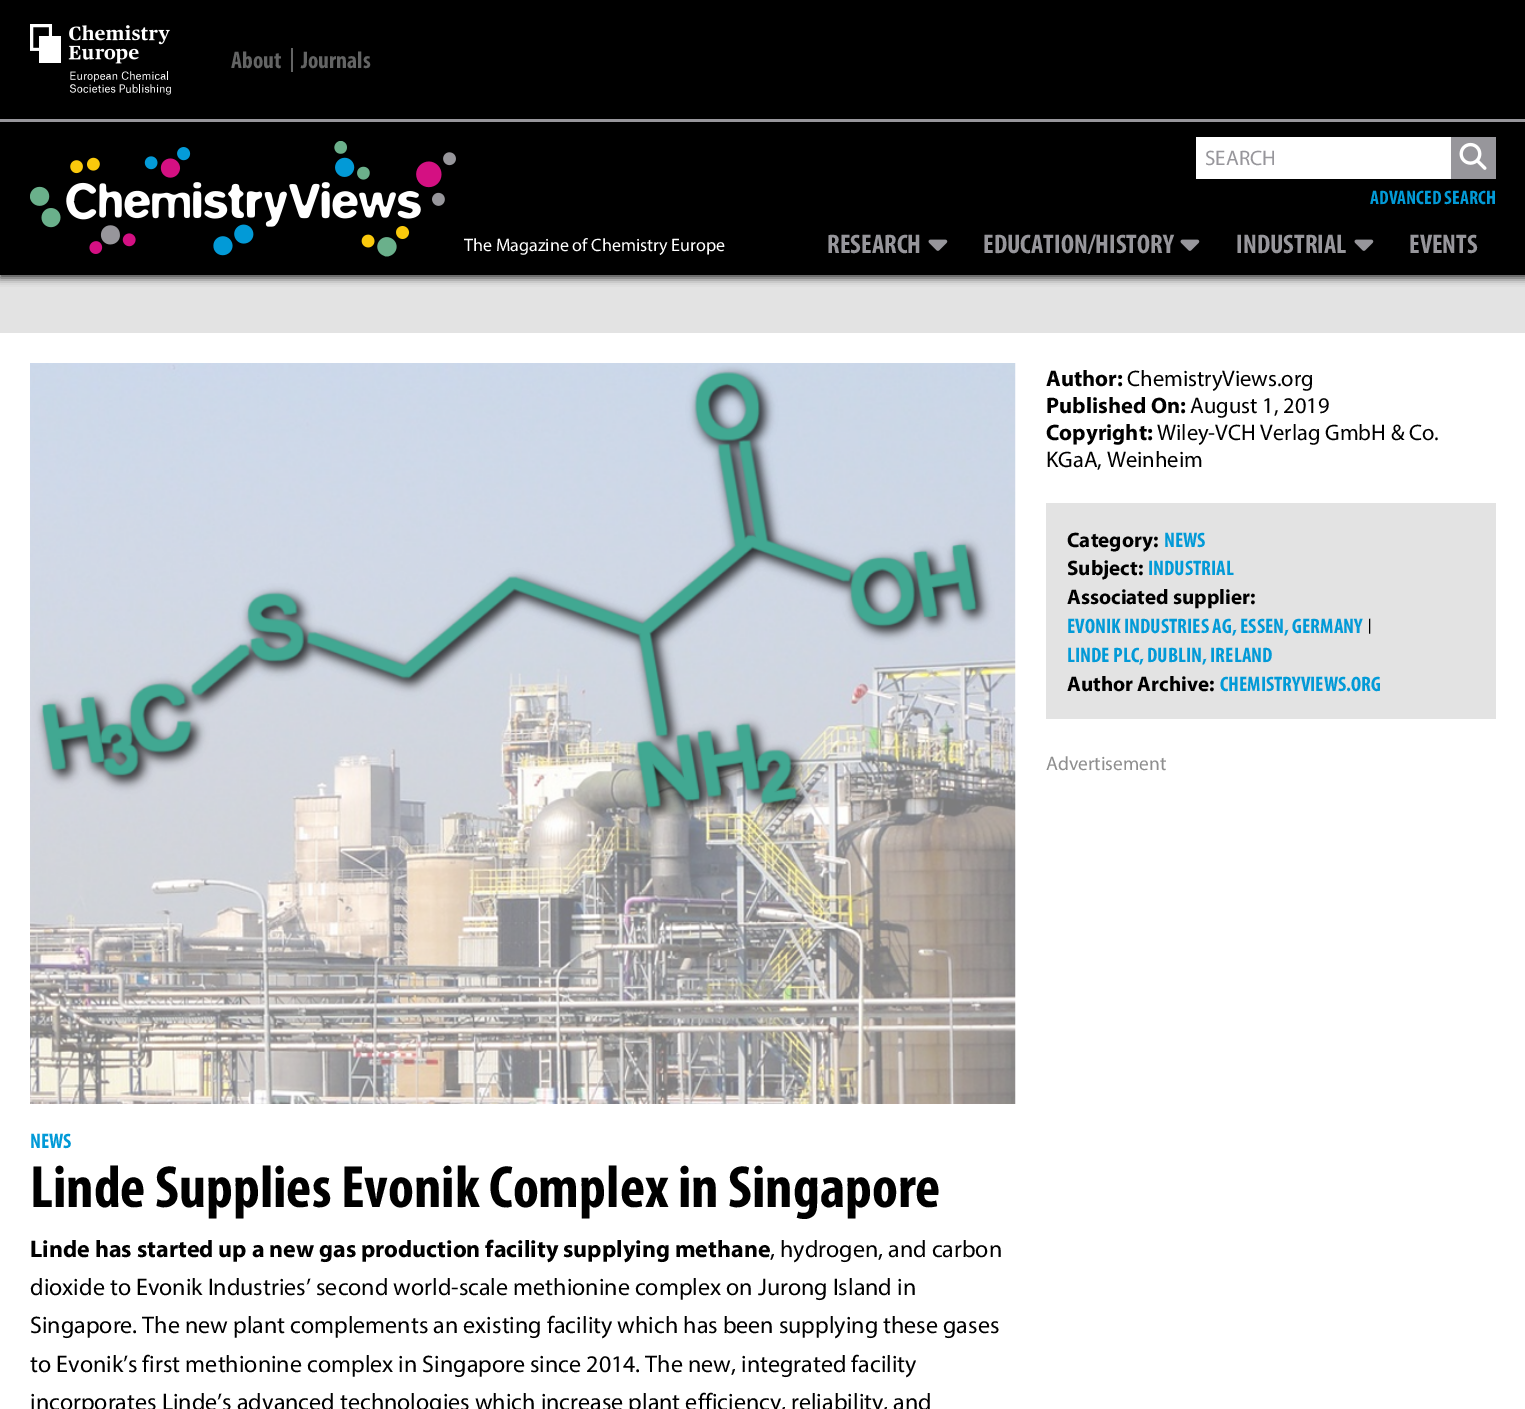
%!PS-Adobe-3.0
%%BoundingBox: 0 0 1525 1409
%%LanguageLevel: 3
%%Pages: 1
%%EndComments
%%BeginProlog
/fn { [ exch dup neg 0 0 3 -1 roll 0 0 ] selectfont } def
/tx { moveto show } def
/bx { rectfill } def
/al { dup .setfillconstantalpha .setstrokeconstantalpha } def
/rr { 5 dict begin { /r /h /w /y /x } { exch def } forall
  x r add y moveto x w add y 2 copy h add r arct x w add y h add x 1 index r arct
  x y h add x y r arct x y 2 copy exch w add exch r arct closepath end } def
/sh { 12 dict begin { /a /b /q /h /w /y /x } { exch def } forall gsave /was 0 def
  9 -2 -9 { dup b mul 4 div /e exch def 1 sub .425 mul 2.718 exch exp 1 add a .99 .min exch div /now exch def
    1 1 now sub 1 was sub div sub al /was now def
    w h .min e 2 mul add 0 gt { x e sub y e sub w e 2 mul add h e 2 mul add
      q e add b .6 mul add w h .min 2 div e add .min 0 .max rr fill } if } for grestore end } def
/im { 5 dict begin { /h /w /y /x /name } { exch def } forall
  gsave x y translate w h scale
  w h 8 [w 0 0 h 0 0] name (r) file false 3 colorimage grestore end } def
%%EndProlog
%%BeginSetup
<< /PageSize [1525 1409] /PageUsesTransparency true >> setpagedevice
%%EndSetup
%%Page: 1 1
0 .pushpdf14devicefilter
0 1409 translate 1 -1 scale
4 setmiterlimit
1 setgray
0 0 1525 1409 bx
0.89 setgray
0 275 1525 58 bx
0 setgray
0 3 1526 275 0 4 0.75 sh
0 0 1525 275 bx
0.592 0.588 0.608 setrgbcolor
0 119 1525 3 bx
(image0.raw) 30 24 141 71 im
0.388 0.392 0.392 setrgbcolor
291 48 2 24 bx
/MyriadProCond-Bold 24 fn
(About) 231 68 tx
(Journals) 301 68 tx
(image1.raw) 30 141 426 116 im
/Myriad-Regular 18 fn
1 setgray
(The Magazine of Chemistry Europe) 464 251 tx
1196 137 255 42 bx
/Myriad-Regular 21 fn
0.592 0.588 0.608 setrgbcolor
(SEARCH) 1205 165 tx
1451 137 45 42 bx
(image2.raw) 1459 142 28 28 im
/MyriadProCond-Bold 19.5 fn
0.008 0.604 0.843 setrgbcolor
(ADVANCED SEARCH) 1370 204 tx
/MyriadProCond-Bold 27 fn
0.592 0.588 0.608 setrgbcolor
(RESEARCH) 827 253 tx
(image3.raw) 928 239 20 12 im
(EDUCATION/HISTORY) 983 253 tx
(image3.raw) 1180 239 20 12 im
(INDUSTRIAL) 1236 253 tx
(image3.raw) 1354 239 20 12 im
(EVENTS) 1409 253 tx
/Myriad-Bold 22.5 fn
0 setgray
(Author:) 1046 386 tx
/Myriad-Regular 22.5 fn
(ChemistryViews.org) 1127 386 tx
/Myriad-Bold 22.5 fn
(Published On:) 1046 413 tx
/Myriad-Regular 22.5 fn
(August 1, 2019) 1190 413 tx
/Myriad-Bold 22.5 fn
(Copyright:) 1046 440 tx
/Myriad-Regular 22.5 fn
(Wiley-VCH Verlag GmbH & Co.) 1157 440 tx
(KGaA, Weinheim) 1046 467 tx
0.89 setgray
1046 503 450 216 bx
/Myriad-Bold 21 fn
0 setgray
(Category:) 1067 547 tx
/MyriadProCond-Bold 21 fn
0.008 0.604 0.843 setrgbcolor
(NEWS) 1164 547 tx
/Myriad-Bold 21 fn
0 setgray
(Subject:) 1067 575 tx
/MyriadProCond-Bold 21 fn
0.008 0.604 0.843 setrgbcolor
(INDUSTRIAL) 1148 575 tx
/Myriad-Bold 21 fn
0 setgray
(Associated supplier:) 1067 604 tx
/MyriadProCond-Bold 21 fn
0.008 0.604 0.843 setrgbcolor
(EVONIK INDUSTRIES AG, ESSEN, GERMANY) 1067 633 tx
/MyriadProCond-Bold 15 fn
0 setgray
(|) 1368 630 tx
/MyriadProCond-Bold 21 fn
0.008 0.604 0.843 setrgbcolor
(LINDE PLC, DUBLIN, IRELAND) 1067 662 tx
/Myriad-Bold 21 fn
0 setgray
(Author Archive:) 1067 691 tx
/MyriadProCond-Bold 21 fn
0.008 0.604 0.843 setrgbcolor
(CHEMISTRYVIEWS.ORG) 1220 691 tx
/Myriad-Regular 19.5 fn
0.557 setgray
(Advertisement) 1046 770 tx
(image4.raw) 30 363 986 741 im
/MyriadProCond-Bold 21 fn
0.008 0.604 0.843 setrgbcolor
(NEWS) 30 1148 tx
/MyriadProCond-Bold 60 fn
0 setgray
(Linde Supplies Evonik Complex in Singapore) 30 1207 tx
/Myriad-Bold 24 fn
(Linde has started up a new gas production facility supplying methane) 30 1257 tx
/Myriad-Regular 24 fn
(, hydrogen, and carbon) 770 1257 tx
(dioxide to Evonik Industries’ second world-scale methionine complex on Jurong Island in) 30 1295 tx
(Singapore. The new plant complements an existing facility which has been supplying these gases) 30 1333 tx
(to Evonik’s first methionine complex in Singapore since 2014. The new, integrated facility) 30 1372 tx
(incorporates Linde’s advanced technologies which increase plant efficiency, reliability, and) 30 1410 tx
.poppdf14devicefilter showpage
%%EOF
